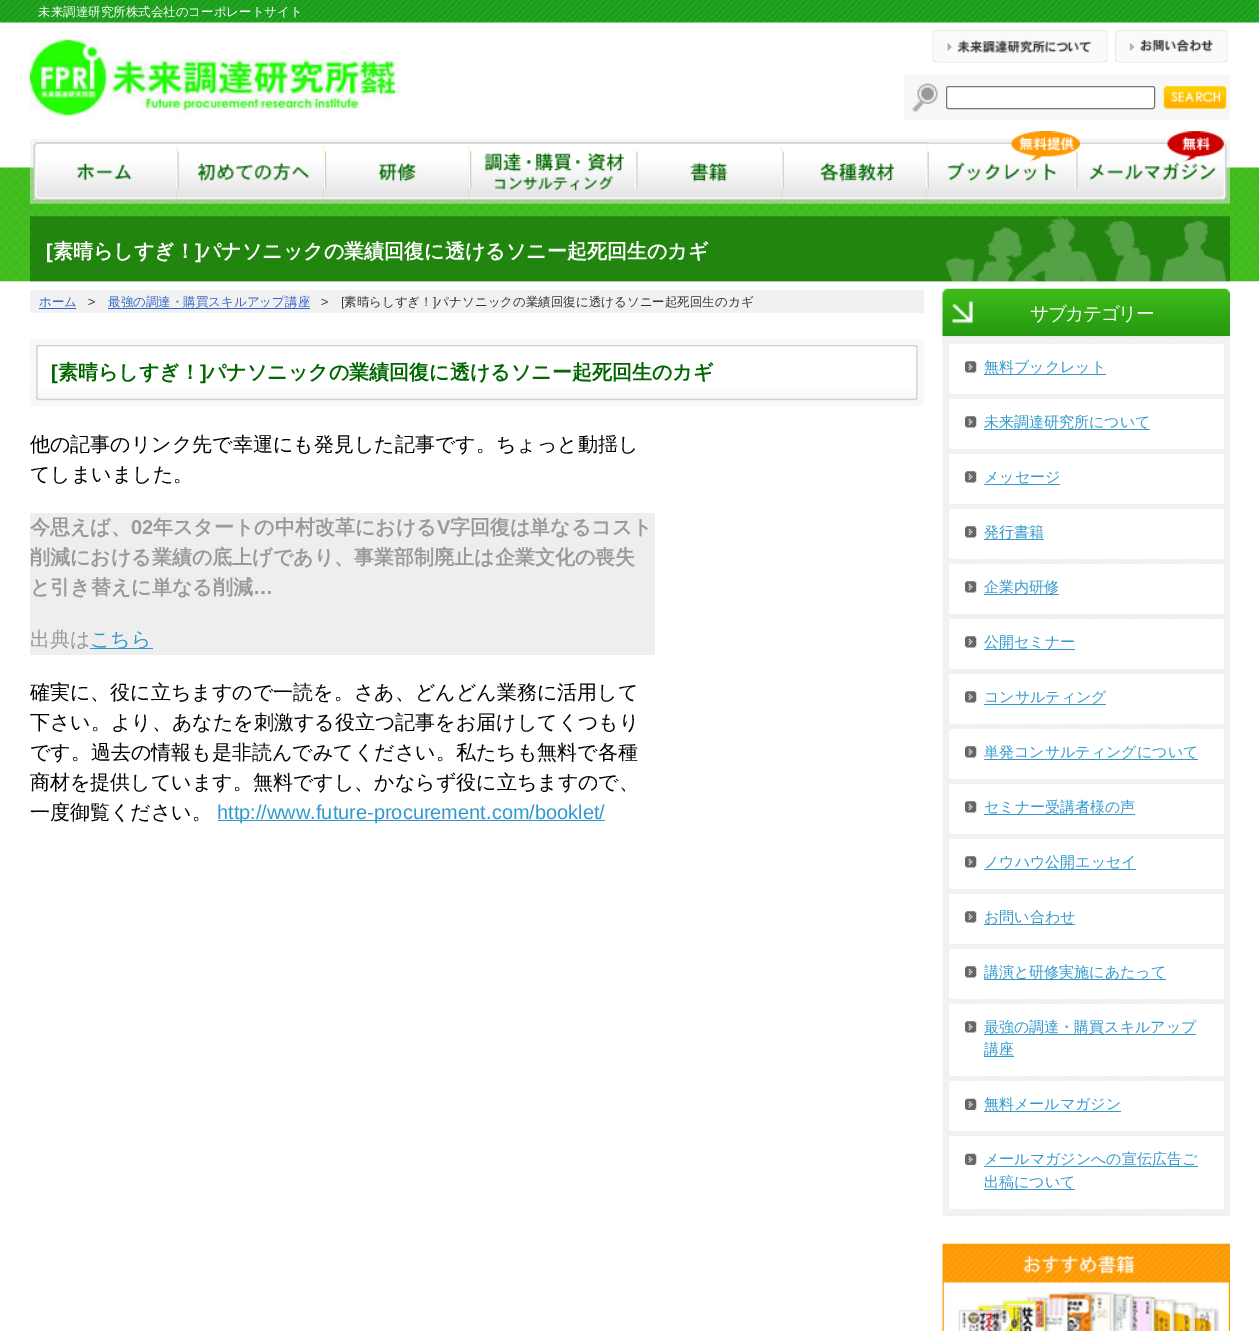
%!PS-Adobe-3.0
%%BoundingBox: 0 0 1259 1331
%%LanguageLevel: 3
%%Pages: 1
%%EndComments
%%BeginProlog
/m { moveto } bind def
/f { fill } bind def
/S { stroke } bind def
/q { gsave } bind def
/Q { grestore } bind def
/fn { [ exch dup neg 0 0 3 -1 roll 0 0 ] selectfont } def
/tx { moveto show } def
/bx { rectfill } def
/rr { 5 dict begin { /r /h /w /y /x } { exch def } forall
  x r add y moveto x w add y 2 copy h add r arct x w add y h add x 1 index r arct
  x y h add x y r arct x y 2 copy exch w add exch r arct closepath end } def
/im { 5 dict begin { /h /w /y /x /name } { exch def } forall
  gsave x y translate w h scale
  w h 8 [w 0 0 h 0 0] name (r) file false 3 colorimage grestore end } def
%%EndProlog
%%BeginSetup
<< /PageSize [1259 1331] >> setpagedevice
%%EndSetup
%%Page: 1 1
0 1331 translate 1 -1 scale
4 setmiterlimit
1 setgray
0 0 1259 1331 bx
(image0.raw) 0 0 1259 23 im
/WenQuanYiZenHei-Medium 12.5 fn
(未来調達研究所株式会社のコーポレートサイト) 38 16 tx
(image1.raw) 30 38 365 79 im
(image2.raw) 932 30 176 33 im
(image3.raw) 1115 30 113 33 im
0.969 setgray
904 75 326 45 bx
0.988 setgray
1229 119 1 1 bx
(image4.raw) 912 83 26 30 im
1 setgray
946.5 86.5 208 22 2 rr q f Q
0.463 setgray
S
(image5.raw) 1163 86 64 23 im
(image6.raw) 0 167 1259 115 im
(image7.raw) 30 139 1200 65 im
(image8.raw) 33 142 144 58 im
(image9.raw) 33 142 144 58 im
(image10.raw) 176 142 148 58 im
(image11.raw) 176 142 148 58 im
(image12.raw) 323 142 146 58 im
(image13.raw) 323 142 146 58 im
(image14.raw) 468 142 167 58 im
(image15.raw) 468 142 167 56 im
(image16.raw) 635 142 147 58 im
(image17.raw) 635 142 147 58 im
(image18.raw) 781 142 146 58 im
(image19.raw) 781 142 146 58 im
(image20.raw) 926 131 154 69 im
(image21.raw) 926 131 154 69 im
(image22.raw) 1080 131 147 69 im
(image23.raw) 1080 131 147 69 im
(image24.raw) 30 216 1200 66 im
/LiberationSans-Bold 20 fn
1 setgray
([) 46 258 tx
/WenQuanYiZenHei-Bold 20 fn
(素晴らしすぎ！) 53 258 tx
/LiberationSans-Bold 20 fn
(]) 195 258 tx
/WenQuanYiZenHei-Bold 20 fn
(パナソニックの業績回復に透けるソニー起死回生のカギ) 201 258 tx
0.945 setgray
30 290 894 23 bx
/WenQuanYiZenHei-Medium 12.5 fn
0.2 0.4 0.8 setrgbcolor
(ホーム) 39 306 tx
39 308 37 1 bx
/LiberationSans-Regular 12.5 fn
0.2 setgray
(>) 88 306 tx
/WenQuanYiZenHei-Medium 12.5 fn
0.2 0.4 0.8 setrgbcolor
(最強の調達・購買スキルアップ講座) 108 306 tx
108 308 202 1 bx
/LiberationSans-Regular 12.5 fn
0.2 setgray
(>) 321 306 tx
([) 341 306 tx
/WenQuanYiZenHei-Medium 12.5 fn
(素晴らしすぎ！ パナソニックの業績回復に透けるソニー起死回生のカギ) 344 306 tx
/LiberationSans-Regular 12.5 fn
(]) 433 306 tx
(image25.raw) 30 339 894 67 im
/LiberationSans-Bold 20 fn
0 0.4 0 setrgbcolor
([) 51 379 tx
/WenQuanYiZenHei-Bold 20 fn
(素晴らしすぎ！) 58 379 tx
/LiberationSans-Bold 20 fn
(]) 200 379 tx
/WenQuanYiZenHei-Bold 20 fn
(パナソニックの業績回復に透けるソニー起死回生のカギ) 206 379 tx
/WenQuanYiZenHei-Medium 20 fn
0 setgray
(他の記事のリンク先で幸運にも発見した記事です。ちょっと動揺し) 30 451 tx
(てしまいました。) 30 481 tx
0.933 setgray
30 513 625 142 bx
/WenQuanYiZenHei-Bold 20 fn
0.6 setgray
(今思えば、) 30 534 tx
/LiberationSans-Bold 20 fn
(02) 131 534 tx
/WenQuanYiZenHei-Bold 20 fn
(年スタートの中村改革における) 153 534 tx
/LiberationSans-Bold 20 fn
(V) 437 534 tx
/WenQuanYiZenHei-Bold 20 fn
(字回復は単なるコスト) 450 534 tx
(削減における業績の底上げであり、事業部制廃止は企業文化の喪失) 30 564 tx
(と引き替えに単なる削減) 30 594 tx
/LiberationSans-Bold 20 fn
(…) 253 594 tx
/WenQuanYiZenHei-Medium 20 fn
(出典は) 30 646 tx
0.2 0.6 0.8 setrgbcolor
90 648 63 1 bx
(こちら) 90 646 tx
0 setgray
(確実に、役に立ちますので一読を。さあ、どんどん業務に活用して) 30 699 tx
(下さい。より、あなたを刺激する役立つ記事をお届けしてくつもり) 30 729 tx
(です。過去の情報も是非読んでみてください。私たちも無料で各種) 30 759 tx
(商材を提供しています。無料ですし、かならず役に立ちますので、) 30 789 tx
(一度御覧ください。) 30 819 tx
0.2 0.6 0.8 setrgbcolor
218 820 387 1 bx
/LiberationSans-Regular 20 fn
(http://www.future-procurement.com/booklet/) 217 819 tx
(image26.raw) 942 288 288 49 im
/WenQuanYiZenHei-Medium 18.75 fn
1 setgray
1030 320 m -1.5 0 (サブカテゴリー) ashow
(image27.raw) 942 336 288 881 im
949 344 275 50 bx
(image28.raw) 965 361 12 12 im
0.2 0.6 0.8 setrgbcolor
984 374 122 1 bx
/WenQuanYiZenHei-Medium 15 fn
(無料ブックレット) 984 372 tx
1 setgray
949 399 275 50 bx
(image28.raw) 965 416 12 12 im
0.2 0.6 0.8 setrgbcolor
(未来調達研究所について) 984 427 tx
984 429 166 1 bx
1 setgray
949 454 275 50 bx
(image28.raw) 965 471 12 12 im
0.2 0.6 0.8 setrgbcolor
(メッセージ) 984 482 tx
984 484 76 1 bx
1 setgray
949 509 275 50 bx
(image28.raw) 965 526 12 12 im
0.2 0.6 0.8 setrgbcolor
(発行書籍) 984 537 tx
984 539 60 1 bx
1 setgray
949 564 275 50 bx
(image28.raw) 965 581 12 12 im
0.2 0.6 0.8 setrgbcolor
984 594 75 1 bx
(企業内研修) 984 592 tx
1 setgray
949 619 275 50 bx
(image28.raw) 965 636 12 12 im
0.2 0.6 0.8 setrgbcolor
984 649 91 1 bx
(公開セミナー) 984 647 tx
1 setgray
949 674 275 50 bx
(image28.raw) 965 691 12 12 im
0.2 0.6 0.8 setrgbcolor
984 704 122 1 bx
(コンサルティング) 984 702 tx
1 setgray
949 729 275 50 bx
(image28.raw) 965 746 12 12 im
0.2 0.6 0.8 setrgbcolor
984 759 214 1 bx
(単発コンサルティングについて) 984 757 tx
1 setgray
949 784 275 50 bx
(image28.raw) 965 801 12 12 im
0.2 0.6 0.8 setrgbcolor
(セミナー受講者様の声) 984 812 tx
984 814 151 1 bx
1 setgray
949 839 275 50 bx
(image28.raw) 965 856 12 12 im
0.2 0.6 0.8 setrgbcolor
984 869 152 1 bx
(ノウハウ公開エッセイ) 984 867 tx
1 setgray
949 894 275 50 bx
(image28.raw) 965 911 12 12 im
0.2 0.6 0.8 setrgbcolor
984 924 91 1 bx
(お問い合わせ) 984 922 tx
1 setgray
949 949 275 50 bx
(image28.raw) 965 966 12 12 im
0.2 0.6 0.8 setrgbcolor
984 979 182 1 bx
(講演と研修実施にあたって) 984 977 tx
1 setgray
949 1004 275 72 bx
(image29.raw) 965 1021 12 12 im
0.2 0.6 0.8 setrgbcolor
984 1034 212 1 bx
(最強の調達・購買スキルアップ) 984 1032 tx
(講座) 984 1054 tx
984 1056 30 1 bx
1 setgray
949 1081 275 50 bx
(image30.raw) 965 1098 12 12 im
0.2 0.6 0.8 setrgbcolor
984 1111 137 1 bx
(無料メールマガジン) 984 1109 tx
1 setgray
949 1136 275 73 bx
(image30.raw) 965 1153 12 12 im
0.2 0.6 0.8 setrgbcolor
984 1166 214 1 bx
(メールマガジンへの宣伝広告ご) 984 1164 tx
(出稿について) 984 1187 tx
984 1189 91 1 bx
(image31.raw) 942 1243 288 88 im
showpage
%%EOF
